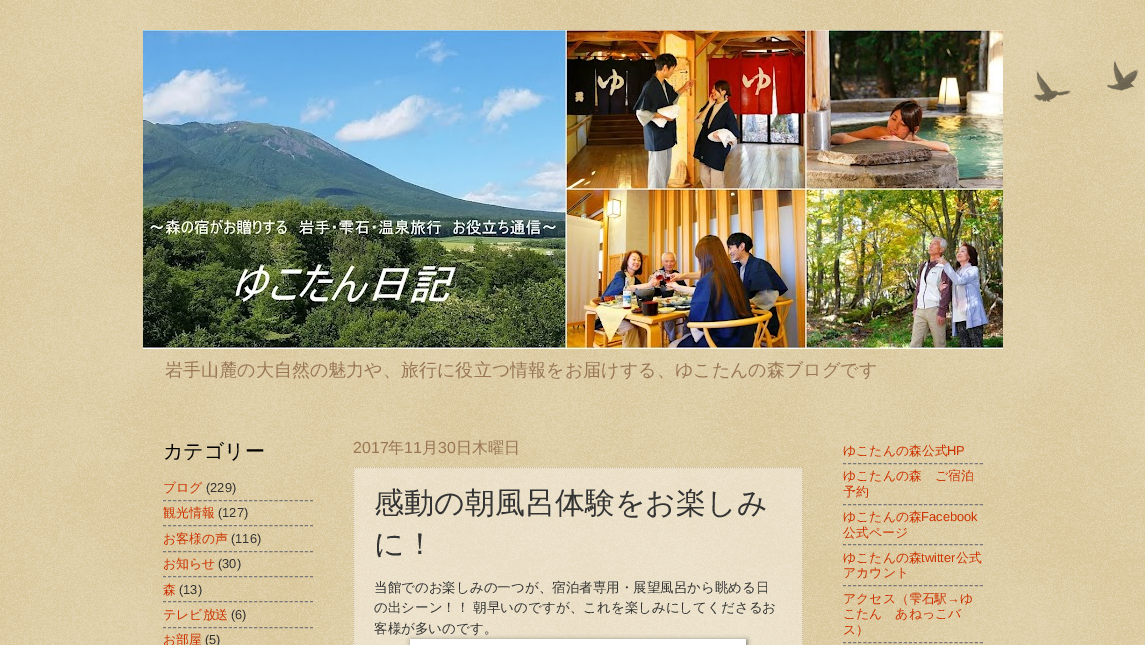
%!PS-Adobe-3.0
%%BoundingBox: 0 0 1145 645
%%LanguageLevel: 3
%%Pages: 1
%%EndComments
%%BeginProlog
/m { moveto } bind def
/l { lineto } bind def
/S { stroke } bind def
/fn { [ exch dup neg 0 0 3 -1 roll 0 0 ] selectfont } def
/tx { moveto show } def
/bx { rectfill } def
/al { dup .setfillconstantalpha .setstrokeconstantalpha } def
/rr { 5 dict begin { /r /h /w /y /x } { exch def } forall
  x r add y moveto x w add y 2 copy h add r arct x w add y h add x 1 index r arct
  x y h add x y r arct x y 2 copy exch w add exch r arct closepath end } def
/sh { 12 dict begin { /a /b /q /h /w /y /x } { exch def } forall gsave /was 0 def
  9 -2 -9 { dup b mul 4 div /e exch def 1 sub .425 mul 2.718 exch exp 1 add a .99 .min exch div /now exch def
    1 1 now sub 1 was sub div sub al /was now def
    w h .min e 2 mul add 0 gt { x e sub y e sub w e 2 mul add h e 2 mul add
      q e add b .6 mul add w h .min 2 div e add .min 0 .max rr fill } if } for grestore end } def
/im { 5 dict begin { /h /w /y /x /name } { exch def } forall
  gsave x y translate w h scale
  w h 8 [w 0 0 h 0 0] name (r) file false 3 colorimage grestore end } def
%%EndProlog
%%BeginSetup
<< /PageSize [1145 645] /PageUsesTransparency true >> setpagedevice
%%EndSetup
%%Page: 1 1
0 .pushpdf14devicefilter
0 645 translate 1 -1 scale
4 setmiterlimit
0.753 0.631 0.329 setrgbcolor
0 0 1145 645 bx
(image0.raw) 0 0 1145 645 im
(image1.raw) 1033 60 106 42 im
(image2.raw) 143 30 860 319 im
/WenQuanYiZenHei-Medium 18.05 fn
0.6 0.467 0.333 setrgbcolor
(岩手山麓の大自然の魅力や、旅行に役立つ情報をお届けする、ゆこたんの森ブログです) 165 376 tx
/WenQuanYiZenHei-Medium 20 fn
0 setgray
(カテゴリー) 163 458 tx
/WenQuanYiZenHei-Medium 12.9 fn
0.8 0.2 0 setrgbcolor
(ブログ) 163 492 tx
/LiberationSans-Regular 12.9 fn
0.2 setgray
(\(229\)) 206 492 tx
0.467 setgray
[3 2.07] 0 setdash
163 500.5 m 313 500.5 l S
/WenQuanYiZenHei-Medium 12.9 fn
0.8 0.2 0 setrgbcolor
(観光情報) 163 517 tx
/LiberationSans-Regular 12.9 fn
0.2 setgray
(\(127\)) 218 517 tx
0.467 setgray
163 525.5 m 313 525.5 l S
/WenQuanYiZenHei-Medium 12.9 fn
0.8 0.2 0 setrgbcolor
(お客様の声) 163 543 tx
/LiberationSans-Regular 12.9 fn
0.2 setgray
(\(116\)) 231 543 tx
0.467 setgray
163 551.5 m 313 551.5 l S
/WenQuanYiZenHei-Medium 12.9 fn
0.8 0.2 0 setrgbcolor
(お知らせ) 163 568 tx
/LiberationSans-Regular 12.9 fn
0.2 setgray
(\(30\)) 218 568 tx
0.467 setgray
163 576.5 m 313 576.5 l S
/WenQuanYiZenHei-Medium 12.9 fn
0.8 0.2 0 setrgbcolor
(森) 163 594 tx
/LiberationSans-Regular 12.9 fn
0.2 setgray
(\(13\)) 179 594 tx
0.467 setgray
163 601.5 m 313 601.5 l S
/WenQuanYiZenHei-Medium 12.9 fn
0.8 0.2 0 setrgbcolor
(テレビ放送) 163 619 tx
/LiberationSans-Regular 12.9 fn
0.2 setgray
(\(6\)) 231 619 tx
0.467 setgray
163 627.5 m 313 627.5 l S
/WenQuanYiZenHei-Medium 12.9 fn
0.8 0.2 0 setrgbcolor
(お部屋) 163 644 tx
/LiberationSans-Regular 12.9 fn
0.2 setgray
(\(5\)) 205 644 tx
/LiberationSans-Regular 16 fn
0.6 0.467 0.333 setrgbcolor
(2017) 353 453 tx
/WenQuanYiZenHei-Medium 16 fn
(年) 388 453 tx
/LiberationSans-Regular 16 fn
(11) 404 453 tx
/WenQuanYiZenHei-Medium 16 fn
(月) 422 453 tx
/LiberationSans-Regular 16 fn
(30) 438 453 tx
/WenQuanYiZenHei-Medium 16 fn
(日木曜日) 456 453 tx
0.4 al
1 setgray
353 467 450 178 bx
1 al
0.8 0.733 0.6 setrgbcolor
[1 1] 0 setdash
353 467.5 m 803 467.5 l S
802.5 467 m 802.5 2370 l S
353.5 467 m 353.5 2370 l S
/WenQuanYiZenHei-Medium 30 fn
0.2 setgray
(感動の朝風呂体験をお楽しみ) 374 513 tx
(に！) 374 554 tx
/WenQuanYiZenHei-Medium 13.5 fn
(当館でのお楽しみの一つが、宿泊者専用・展望風呂から眺める日) 374 592 tx
(の出シーン！！ 朝早いのですが、これを楽しみにしてくださるお) 374 612 tx
(客様が多いのです。) 374 633 tx
0 setgray
411 640 336 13 0 2.5 0.5 sh
1 setgray
410 639 336 6 bx
/WenQuanYiZenHei-Medium 12.9 fn
0.8 0.2 0 setrgbcolor
(ゆこたんの森公式) 843 455 tx
/LiberationSans-Regular 12.9 fn
(HP) 947 455 tx
0.467 setgray
[3 2.07] 0 setdash
843 463.5 m 983 463.5 l S
/WenQuanYiZenHei-Medium 12.9 fn
0.8 0.2 0 setrgbcolor
(ゆこたんの森　ご宿泊) 843 480 tx
(予約) 843 496 tx
0.467 setgray
843 504.5 m 983 504.5 l S
0.8 0.2 0 setrgbcolor
(ゆこたんの森) 843 521 tx
/LiberationSans-Regular 12.9 fn
(Facebook) 921 521 tx
/WenQuanYiZenHei-Medium 12.9 fn
(公式ページ) 843 537 tx
0.467 setgray
843 544.5 m 983 544.5 l S
0.8 0.2 0 setrgbcolor
(ゆこたんの森) 843 562 tx
/LiberationSans-Regular 12.9 fn
(twitter) 921 562 tx
/WenQuanYiZenHei-Medium 12.9 fn
(公式) 956 562 tx
(アカウント) 843 577 tx
0.467 setgray
843 585.5 m 983 585.5 l S
0.8 0.2 0 setrgbcolor
(アクセス（雫石駅) 843 603 tx
/LiberationSans-Regular 12.9 fn
(→) 947 603 tx
/WenQuanYiZenHei-Medium 12.9 fn
(ゆ) 960 603 tx
(こたん　あねっこバ) 843 618 tx
(ス）) 843 634 tx
0.467 setgray
843 642.5 m 983 642.5 l S
.poppdf14devicefilter showpage
%%EOF
